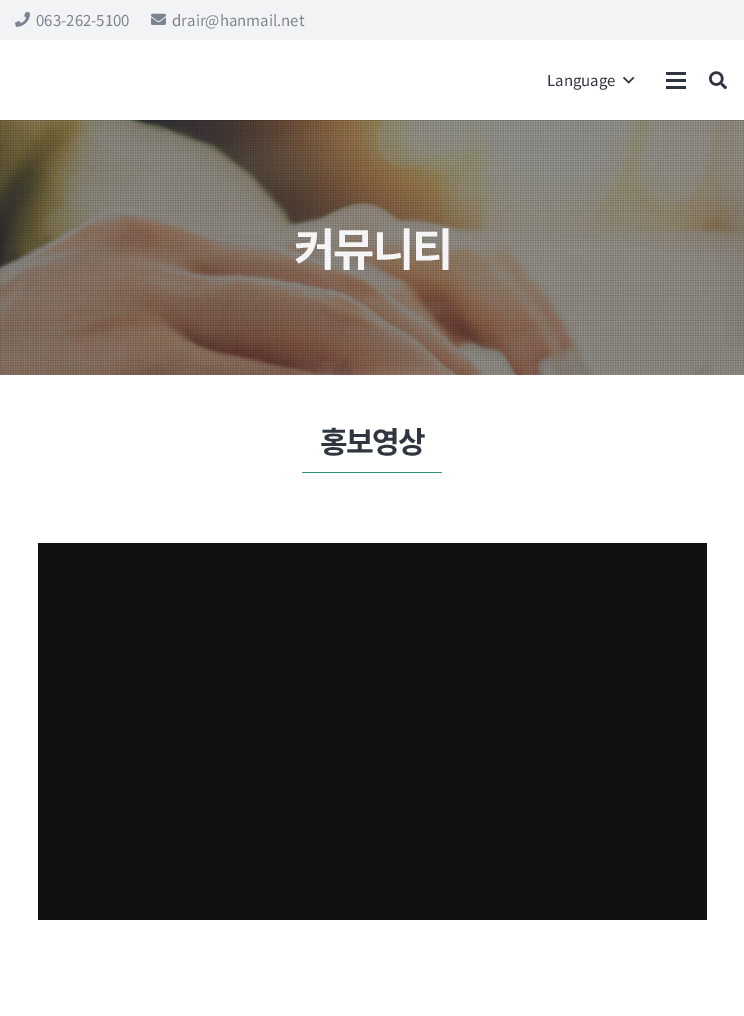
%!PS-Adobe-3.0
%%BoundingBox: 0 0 744 1016
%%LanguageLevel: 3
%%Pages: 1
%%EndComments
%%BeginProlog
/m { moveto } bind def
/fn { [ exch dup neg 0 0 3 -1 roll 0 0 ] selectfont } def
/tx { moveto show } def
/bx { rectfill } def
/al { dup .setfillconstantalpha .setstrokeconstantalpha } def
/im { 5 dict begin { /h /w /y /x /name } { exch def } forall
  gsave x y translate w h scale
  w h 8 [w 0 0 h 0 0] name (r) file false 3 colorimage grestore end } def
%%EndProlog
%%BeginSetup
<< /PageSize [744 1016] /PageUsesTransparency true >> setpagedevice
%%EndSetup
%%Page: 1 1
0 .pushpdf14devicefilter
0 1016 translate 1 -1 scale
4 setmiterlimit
1 setgray
0 0 744 1016 bx
0.949 0.953 0.961 setrgbcolor
0 0 744 40 bx
(image0.raw) 15 11 15 16 im
/NotoSansKR-Regular 15 fn
0.486 0.518 0.569 setrgbcolor
(063-262-5100) 36 26 tx
(image1.raw) 151 13 15 12 im
(drair@hanmail.net) 172 26 tx
(image4.raw) 0 120 744 255 im
0.08 al
0 setgray
0 120 744 1 bx
1 al
0.188 0.212 0.251 setrgbcolor
(Language) 547 86 tx
(image2.raw) 623 76 12 8 im
666 79 20 3 bx
666 72 20 3 bx
666 86 20 3 bx
(image3.raw) 709 71 18 19 im
/NotoSansKR-Bold 45 fn
0.961 setgray
294 266 m -2 0 (커뮤니티) ashow
/NotoSansKR-Bold 30 fn
0.188 0.212 0.251 setrgbcolor
320 453 m -1.5 0 (홍보영상) ashow
0.184 0.604 0.4 setrgbcolor
302 472 140 1 bx
0.067 setgray
38 543 669 377 bx
.poppdf14devicefilter showpage
%%EOF
